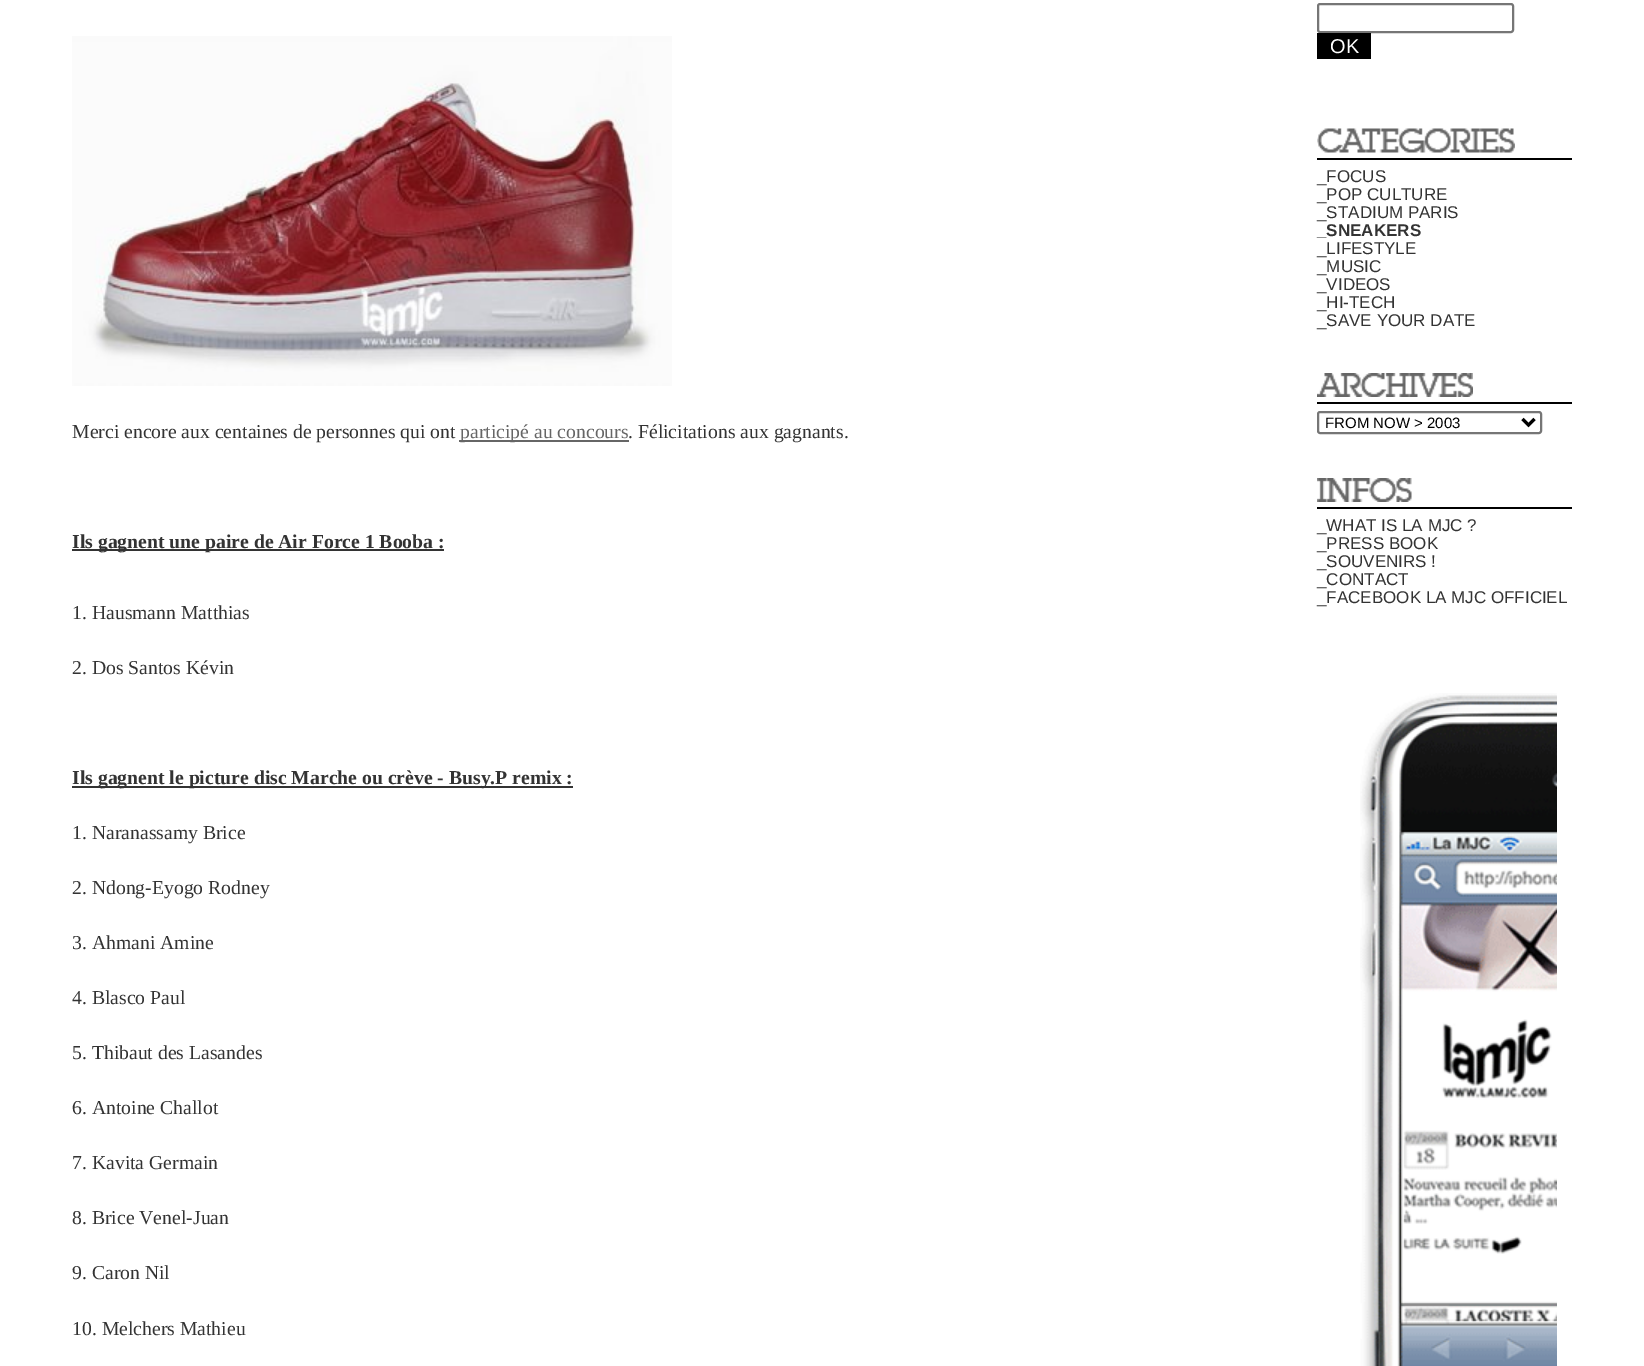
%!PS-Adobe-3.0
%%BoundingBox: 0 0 1644 1366
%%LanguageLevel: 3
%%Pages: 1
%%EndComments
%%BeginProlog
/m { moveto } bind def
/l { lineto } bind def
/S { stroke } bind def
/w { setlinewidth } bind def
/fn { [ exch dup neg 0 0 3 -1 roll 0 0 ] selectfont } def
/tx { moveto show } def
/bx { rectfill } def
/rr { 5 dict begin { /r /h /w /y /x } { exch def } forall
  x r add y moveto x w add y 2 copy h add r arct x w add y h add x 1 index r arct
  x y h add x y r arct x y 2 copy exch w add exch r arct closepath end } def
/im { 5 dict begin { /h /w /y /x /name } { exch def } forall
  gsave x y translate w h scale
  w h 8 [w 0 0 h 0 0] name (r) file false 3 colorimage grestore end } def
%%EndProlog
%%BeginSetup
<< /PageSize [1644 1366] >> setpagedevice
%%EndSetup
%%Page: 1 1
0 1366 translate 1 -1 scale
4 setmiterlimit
1 setgray
0 0 1644 1366 bx
0.463 setgray
2 w
1318 4 195 28 2 rr S
0 setgray
1317 33 54 26 bx
/LiberationSans-Regular 20 fn
1 setgray
(OK) 1330 53 tx
0 setgray
1317 158 255 2 bx
(image0.raw) 1317 128 198 25 im
/LiberationSans-Regular 17 fn
0.2 setgray
(_FOCUS) 1317 182 tx
(_POP CULTURE) 1317 200 tx
(_STADIUM PARIS) 1317 218 tx
/LiberationSans-Bold 17 fn
(_SNEAKERS) 1317 236 tx
/LiberationSans-Regular 17 fn
(_LIFESTYLE) 1317 254 tx
(_MUSIC) 1317 272 tx
(_VIDEOS) 1317 290 tx
(_HI-TECH) 1317 308 tx
(_SAVE YOUR DATE) 1317 326 tx
0 setgray
1317 402 255 2 bx
(image1.raw) 1317 373 156 24 im
0.463 setgray
1318 412 223 21 2 rr S
0 setgray
3 w
1522.5 419 m 1528.5 425 l 1534.5 419 l S
/LiberationSans-Regular 15 fn
(FROM NOW > 2003) 1325 428 tx
1317 507 255 2 bx
(image2.raw) 1317 478 95 24 im
/LiberationSans-Regular 17 fn
0.2 setgray
(_WHAT IS LA MJC ?) 1317 531 tx
(_PRESS BOOK) 1317 549 tx
(_SOUVENIRS !) 1317 567 tx
(_CONTACT) 1317 585 tx
(_FACEBOOK LA MJC OFFICIEL) 1317 603 tx
(image3.raw) 1360 693 197 673 im
(image4.raw) 72 36 600 350 im
/LiberationSerif-Regular 19.7 fn
(Merci encore aux centaines de personnes qui ont) 72 438 tx
0.4 setgray
459 440 170 2 bx
(participé au concours) 460 438 tx
0.2 setgray
(. Félicitations aux gagnants.) 628 438 tx
72 549 372 2 bx
/LiberationSerif-Bold 19.7 fn
(Ils gagnent une paire de Air Force 1 Booba :) 72 548 tx
/LiberationSerif-Regular 19.7 fn
(1. Hausmann Matthias) 72 619 tx
(2. Dos Santos Kévin) 72 674 tx
72 786 501 2 bx
/LiberationSerif-Bold 19.7 fn
(Ils gagnent le picture disc Marche ou crève - Busy.P remix :) 72 784 tx
/LiberationSerif-Regular 19.7 fn
(1. Naranassamy Brice) 72 839 tx
(2. Ndong-Eyogo Rodney) 72 894 tx
(3. Ahmani Amine) 72 949 tx
(4. Blasco Paul) 72 1004 tx
(5. Thibaut des Lasandes) 72 1059 tx
(6. Antoine Challot) 72 1114 tx
(7. Kavita Germain) 72 1169 tx
(8. Brice Venel-Juan) 72 1224 tx
(9. Caron Nil) 72 1279 tx
(10. Melchers Mathieu) 72 1335 tx
showpage
%%EOF
